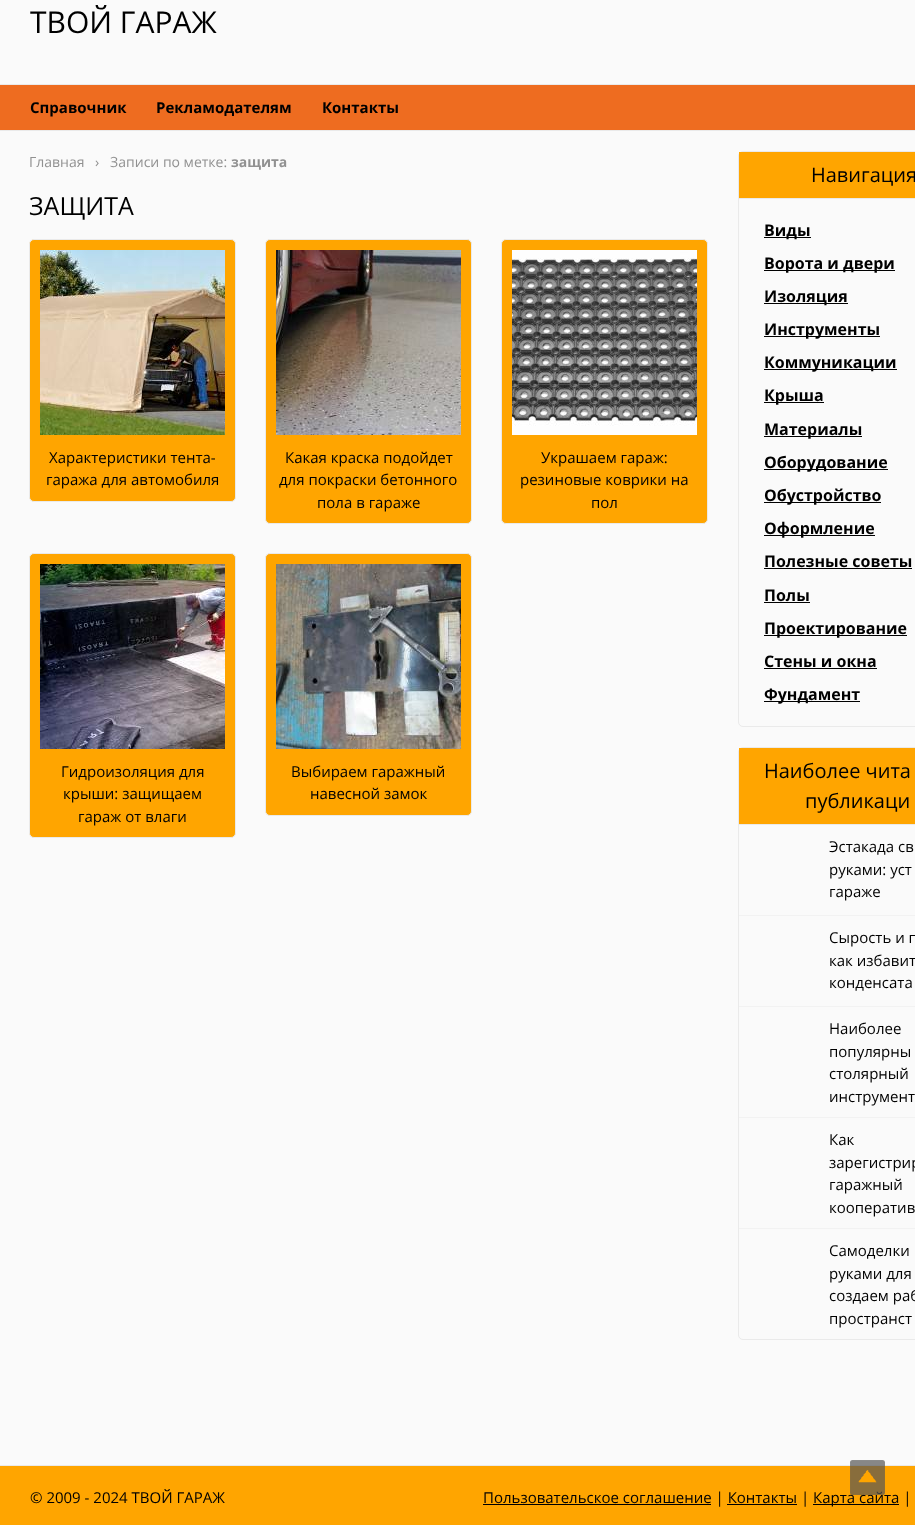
<svg xmlns="http://www.w3.org/2000/svg" width="915" height="1525">
<rect width="100%" height="100%" fill="#fafafa"/>
<text x="30" y="33" style="font-family:Open Sans;font-size:30px;fill:#000">ТВОЙ ГАРАЖ</text>
<rect y="85" width="915" height="45" fill="#ee6c20"/>
<rect y="84" width="915" height="1" fill="#eaeaea"/>
<rect y="130" width="915" height="1" fill="#eaeaea"/>
<text x="30" y="113" style="font-family:Open Sans;font-size:15px;font-weight:bold;fill:#000">Справочник</text>
<text x="156" y="113" style="font-family:Open Sans;font-size:15px;font-weight:bold;fill:#000">Рекламодателям</text>
<text x="322" y="113" style="font-family:Open Sans;font-size:15px;font-weight:bold;fill:#000">Контакты</text>
<text x="29" y="167" style="font-family:Open Sans;font-size:14px;fill:#919191">Главная</text>
<text x="95" y="167" style="font-family:Open Sans;font-size:14px;fill:#919191" xml:space="preserve">›   Записи по метке:</text>
<text x="231" y="167" style="font-family:Open Sans;font-size:14px;font-weight:bold;fill:#919191">защита</text>
<text x="29" y="215" style="font-family:Open Sans;font-size:25px;fill:#000">ЗАЩИТА</text>
<rect x="29.5" y="239.5" width="206" height="262" rx="4.5" fill="#ffa500" stroke="#eaeaea"/>
<image x="40" y="250" width="185" height="185" href="media/1.png"/>
<text x="49" y="463" style="font-family:Open Sans;font-size:15px;fill:#000">Характеристики тента-</text>
<text x="46" y="485" style="font-family:Open Sans;font-size:15px;fill:#000">гаража для автомобиля</text>
<rect x="265.5" y="239.5" width="206" height="284" rx="4.5" fill="#ffa500" stroke="#eaeaea"/>
<image x="276" y="250" width="185" height="185" href="media/2.png"/>
<text x="285" y="463" style="font-family:Open Sans;font-size:15px;fill:#000">Какая краска подойдет</text>
<text x="279" y="485" style="font-family:Open Sans;font-size:15px;fill:#000">для покраски бетонного</text>
<text x="317" y="508" style="font-family:Open Sans;font-size:15px;fill:#000">пола в гараже</text>
<rect x="501.5" y="239.5" width="206" height="284" rx="4.5" fill="#ffa500" stroke="#eaeaea"/>
<image x="512" y="250" width="185" height="185" href="media/3.png"/>
<text x="541" y="463" style="font-family:Open Sans;font-size:15px;fill:#000">Украшаем гараж:</text>
<text x="520" y="485" style="font-family:Open Sans;font-size:15px;fill:#000">резиновые коврики на</text>
<text x="591" y="508" style="font-family:Open Sans;font-size:15px;fill:#000">пол</text>
<rect x="29.5" y="553.5" width="206" height="284" rx="4.5" fill="#ffa500" stroke="#eaeaea"/>
<image x="40" y="564" width="185" height="185" href="media/4.png"/>
<text x="61" y="777" style="font-family:Open Sans;font-size:15px;fill:#000">Гидроизоляция для</text>
<text x="63" y="799" style="font-family:Open Sans;font-size:15px;fill:#000">крыши: защищаем</text>
<text x="78" y="822" style="font-family:Open Sans;font-size:15px;fill:#000">гараж от влаги</text>
<rect x="265.5" y="553.5" width="206" height="262" rx="4.5" fill="#ffa500" stroke="#eaeaea"/>
<image x="276" y="564" width="185" height="185" href="media/5.png"/>
<text x="291" y="777" style="font-family:Open Sans;font-size:15px;fill:#000">Выбираем гаражный</text>
<text x="310" y="799" style="font-family:Open Sans;font-size:15px;fill:#000">навесной замок</text>
<rect x="738.5" y="151.5" width="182" height="575" rx="4.5" fill="none" stroke="#eaeaea"/>
<rect x="739" y="152" width="176" height="46" fill="#ffa500"/>
<rect x="739" y="198" width="176" height="1" fill="#eaeaea"/>
<text x="811" y="182" style="font-family:Open Sans;font-size:20px;fill:#000">Навигация</text>
<rect x="764" y="237" width="47" height="1" fill="#000"/>
<text x="764" y="236" style="font-family:Open Sans;font-size:16px;font-weight:bold;fill:#000">Виды</text>
<rect x="764" y="270" width="131" height="1" fill="#000"/>
<text x="764" y="269" style="font-family:Open Sans;font-size:16px;font-weight:bold;fill:#000">Ворота и двери</text>
<rect x="764" y="303" width="84" height="1" fill="#000"/>
<text x="764" y="302" style="font-family:Open Sans;font-size:16px;font-weight:bold;fill:#000">Изоляция</text>
<rect x="764" y="336" width="116" height="1" fill="#000"/>
<text x="764" y="335" style="font-family:Open Sans;font-size:16px;font-weight:bold;fill:#000">Инструменты</text>
<rect x="764" y="369" width="133" height="1" fill="#000"/>
<text x="764" y="368" style="font-family:Open Sans;font-size:16px;font-weight:bold;fill:#000">Коммуникации</text>
<rect x="764" y="402" width="60" height="1" fill="#000"/>
<text x="764" y="401" style="font-family:Open Sans;font-size:16px;font-weight:bold;fill:#000">Крыша</text>
<rect x="764" y="436" width="98" height="1" fill="#000"/>
<text x="764" y="435" style="font-family:Open Sans;font-size:16px;font-weight:bold;fill:#000">Материалы</text>
<rect x="764" y="469" width="124" height="1" fill="#000"/>
<text x="764" y="468" style="font-family:Open Sans;font-size:16px;font-weight:bold;fill:#000">Оборудование</text>
<rect x="764" y="502" width="117" height="1" fill="#000"/>
<text x="764" y="501" style="font-family:Open Sans;font-size:16px;font-weight:bold;fill:#000">Обустройство</text>
<rect x="764" y="535" width="111" height="1" fill="#000"/>
<text x="764" y="534" style="font-family:Open Sans;font-size:16px;font-weight:bold;fill:#000">Оформление</text>
<text x="764" y="567" style="font-family:Open Sans;font-size:16px;font-weight:bold;fill:#000">Полезные советы</text>
<rect x="764" y="568" width="148" height="1" fill="#000"/>
<text x="764" y="601" style="font-family:Open Sans;font-size:16px;font-weight:bold;fill:#000">Полы</text>
<rect x="764" y="602" width="46" height="1" fill="#000"/>
<rect x="764" y="635" width="143" height="1" fill="#000"/>
<text x="764" y="634" style="font-family:Open Sans;font-size:16px;font-weight:bold;fill:#000">Проектирование</text>
<text x="764" y="667" style="font-family:Open Sans;font-size:16px;font-weight:bold;fill:#000">Стены и окна</text>
<rect x="764" y="668" width="113" height="1" fill="#000"/>
<rect x="764" y="701" width="96" height="1" fill="#000"/>
<text x="764" y="700" style="font-family:Open Sans;font-size:16px;font-weight:bold;fill:#000">Фундамент</text>
<rect x="738.5" y="747.5" width="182" height="592" rx="4.5" fill="none" stroke="#eaeaea"/>
<rect x="739" y="748" width="176" height="76" fill="#ffa500"/>
<rect x="739" y="824" width="176" height="1" fill="#eaeaea"/>
<text x="764" y="778" style="font-family:Open Sans;font-size:20px;fill:#000">Наиболее чита</text>
<text x="805" y="808" style="font-family:Open Sans;font-size:20px;fill:#000">публикаци</text>
<text x="829" y="852" style="font-family:Open Sans;font-size:15px;fill:#000">Эстакада св</text>
<text x="829" y="875" style="font-family:Open Sans;font-size:15px;fill:#000">руками: уст</text>
<text x="829" y="897" style="font-family:Open Sans;font-size:15px;fill:#000">гараже</text>
<rect x="739" y="915" width="176" height="1" fill="#f2f2f2"/>
<text x="829" y="943" style="font-family:Open Sans;font-size:15px;fill:#000">Сырость и п</text>
<text x="829" y="966" style="font-family:Open Sans;font-size:15px;fill:#000">как избавит</text>
<text x="829" y="988" style="font-family:Open Sans;font-size:15px;fill:#000">конденсата</text>
<rect x="739" y="1006" width="176" height="1" fill="#f2f2f2"/>
<text x="829" y="1034" style="font-family:Open Sans;font-size:15px;fill:#000">Наиболее</text>
<text x="829" y="1057" style="font-family:Open Sans;font-size:15px;fill:#000">популярны</text>
<text x="829" y="1079" style="font-family:Open Sans;font-size:15px;fill:#000">столярный</text>
<text x="829" y="1102" style="font-family:Open Sans;font-size:15px;fill:#000">инструмент</text>
<rect x="739" y="1117" width="176" height="1" fill="#f2f2f2"/>
<text x="829" y="1145" style="font-family:Open Sans;font-size:15px;fill:#000">Как</text>
<text x="829" y="1168" style="font-family:Open Sans;font-size:15px;fill:#000">зарегистрир</text>
<text x="829" y="1190" style="font-family:Open Sans;font-size:15px;fill:#000">гаражный</text>
<text x="829" y="1213" style="font-family:Open Sans;font-size:15px;fill:#000">кооператив</text>
<rect x="739" y="1228" width="176" height="1" fill="#f2f2f2"/>
<text x="829" y="1256" style="font-family:Open Sans;font-size:15px;fill:#000">Самоделки</text>
<text x="829" y="1279" style="font-family:Open Sans;font-size:15px;fill:#000">руками для</text>
<text x="829" y="1301" style="font-family:Open Sans;font-size:15px;fill:#000">создаем раб</text>
<text x="829" y="1324" style="font-family:Open Sans;font-size:15px;fill:#000">пространст</text>
<rect y="1466" width="915" height="59" fill="#ffa500"/>
<rect y="1465" width="915" height="1" fill="#eaeaea"/>
<text x="30" y="1503" style="font-family:Open Sans;font-size:15px;fill:#000">© 2009 - 2024 ТВОЙ ГАРАЖ</text>
<rect x="483" y="1504" width="228" height="1" fill="#000"/>
<text x="483" y="1503" style="font-family:Open Sans;font-size:15px;fill:#000">Пользовательское соглашение | Контакты |</text>
<rect x="813" y="1504" width="86" height="1" fill="#000"/>
<text x="813" y="1503" style="font-family:Open Sans;font-size:15px;fill:#000">Карта сайта |</text>
<rect x="727" y="1504" width="70" height="1" fill="#000"/>
<image x="850" y="1460" width="35" height="35" href="media/6.png"/>
</svg>
